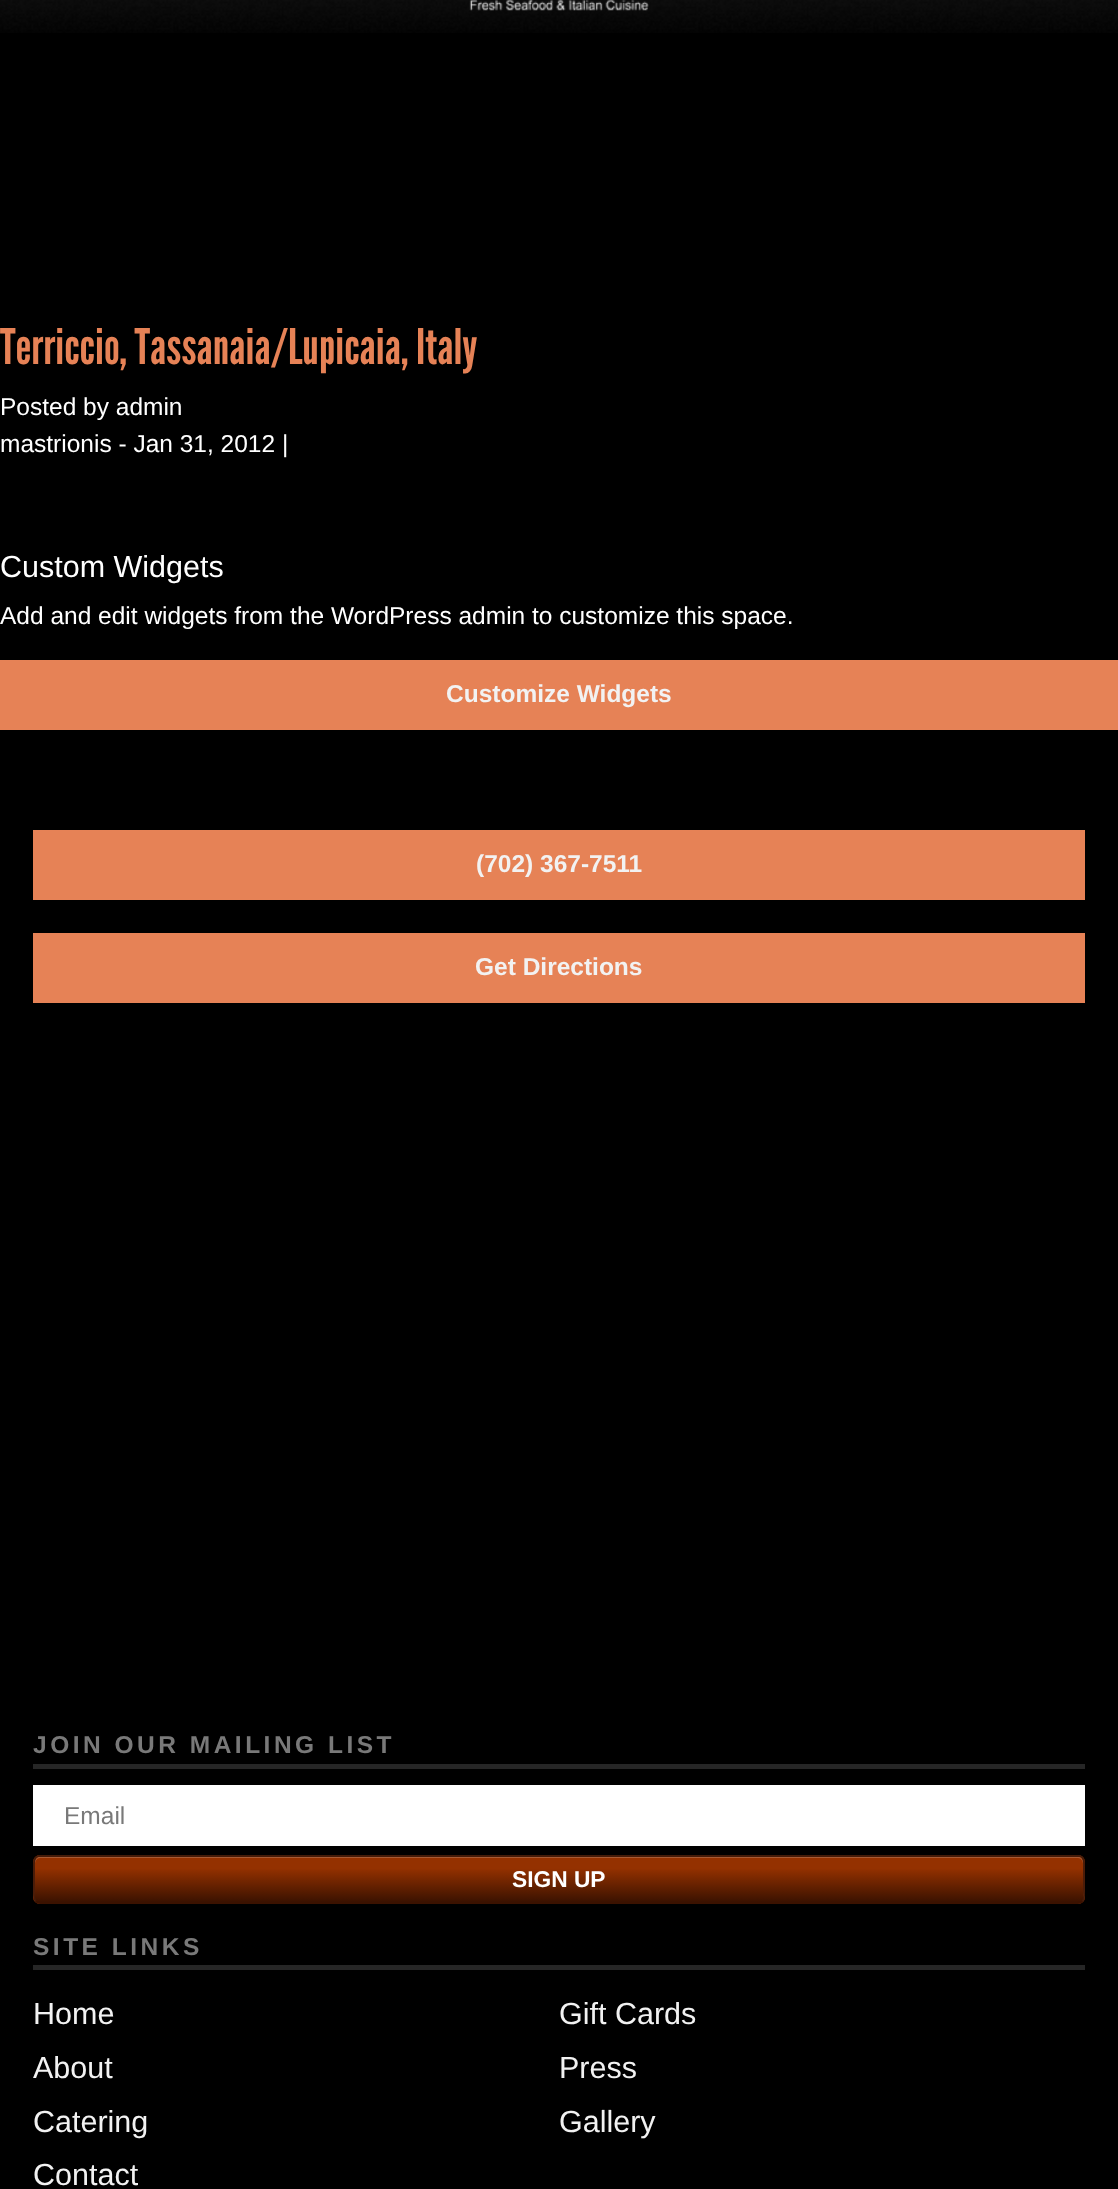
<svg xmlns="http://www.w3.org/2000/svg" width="1118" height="2189">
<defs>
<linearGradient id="g1" gradientUnits="userSpaceOnUse" x1="559" y1="1857" x2="559" y2="1902"><stop offset="0" stop-color="#943100"/><stop offset="0.25" stop-color="#943100"/><stop offset="1" stop-color="#3b1200"/></linearGradient>
</defs>
<rect width="100%" height="100%" fill="#000"/>
<image x="0" y="0" width="1118" height="33" href="media/1.png"/>
<image x="469" y="0" width="180" height="11" href="media/2.png"/>
<text x="0" y="364" style="font-family:League Gothic;font-size:49px;fill:#e68256">Terriccio, Tassanaia/Lupicaia, Italy</text>
<text x="0" y="415" style="font-family:Liberation Sans;font-size:24.5px;fill:#fff">Posted by admin</text>
<text x="0" y="452" style="font-family:Liberation Sans;font-size:24.5px;fill:#fff">mastrionis - Jan 31, 2012 |</text>
<text x="0" y="577" style="font-family:Liberation Sans;font-size:30.5px;fill:#fff">Custom Widgets</text>
<text x="0" y="624" style="font-family:Liberation Sans;font-size:24.5px;fill:#fff">Add and edit widgets from the WordPress admin to customize this space.</text>
<rect y="660" width="1118" height="70" fill="#e68256"/>
<text x="446" y="702" style="font-family:Liberation Sans;font-size:24.5px;font-weight:bold;fill:#f2f2f2">Customize Widgets</text>
<rect x="33" y="830" width="1052" height="70" fill="#e68256"/>
<text x="476" y="872" style="font-family:Liberation Sans;font-size:24.5px;font-weight:bold;fill:#f2f2f2">(702) 367-7511</text>
<rect x="33" y="933" width="1052" height="70" fill="#e68256"/>
<text x="475" y="975" style="font-family:Liberation Sans;font-size:24.5px;font-weight:bold;fill:#f2f2f2">Get Directions</text>
<rect x="33" y="1764" width="1052" height="5" fill="#262626"/>
<text x="33" y="1753" style="font-family:Liberation Sans;font-size:24.5px;font-weight:bold;letter-spacing:3.5px;fill:#797979">JOIN OUR MAILING LIST</text>
<rect x="33" y="1785" width="1052" height="61" fill="#fff"/>
<text x="64" y="1824" style="font-family:Liberation Sans;font-size:24.5px;fill:#797979">Email</text>
<rect x="33" y="1855" width="1052" height="49" rx="7" fill="#943100"/>
<rect x="35" y="1869" width="1048" height="33" fill="url(#g1)"/>
<path d="M40 1858h1038c3 0 5 3 5 6v-2c0-3-2-5-5-5h-1038c-3 0-5 2-5 5v2c0-3 2-6 5-6z" fill="#a95a33"/>
<path d="M1082.5 1901.5c-1.5 1-3 1.5-4.5 1.5h-1038c-1.5 0-3-.5-4-1.5" fill="none" stroke="#3b1200" stroke-width="1.8"/>
<path d="M36 1901.5c-2.5-3-2-7-2-10.5v-23c0-4.5-1-10.5 4.5-12h1041.5c5 1.5 4 7.5 4 12v23c0 3.5 1 7.5-1.5 10.5" fill="none" stroke="#441b09" stroke-width="1.8"/>
<text x="512" y="1887" style="font-family:Liberation Sans;font-size:22.75px;font-weight:bold;fill:#fff">SIGN UP</text>
<rect x="33" y="1965" width="1052" height="5" fill="#262626"/>
<text x="33" y="1955" style="font-family:Liberation Sans;font-size:24.5px;font-weight:bold;letter-spacing:3.5px;fill:#797979">SITE LINKS</text>
<text x="33" y="2024" style="font-family:Liberation Sans;font-size:30.5px;fill:#f2f2f2">Home</text>
<text x="559" y="2024" style="font-family:Liberation Sans;font-size:30.5px;fill:#f2f2f2">Gift Cards</text>
<text x="33" y="2078" style="font-family:Liberation Sans;font-size:30.5px;fill:#f2f2f2">About</text>
<text x="559" y="2078" style="font-family:Liberation Sans;font-size:30.5px;fill:#f2f2f2">Press</text>
<text x="33" y="2132" style="font-family:Liberation Sans;font-size:30.5px;fill:#f2f2f2">Catering</text>
<text x="559" y="2132" style="font-family:Liberation Sans;font-size:30.5px;fill:#f2f2f2">Gallery</text>
<text x="33" y="2185" style="font-family:Liberation Sans;font-size:30.5px;fill:#f2f2f2">Contact</text>
</svg>
